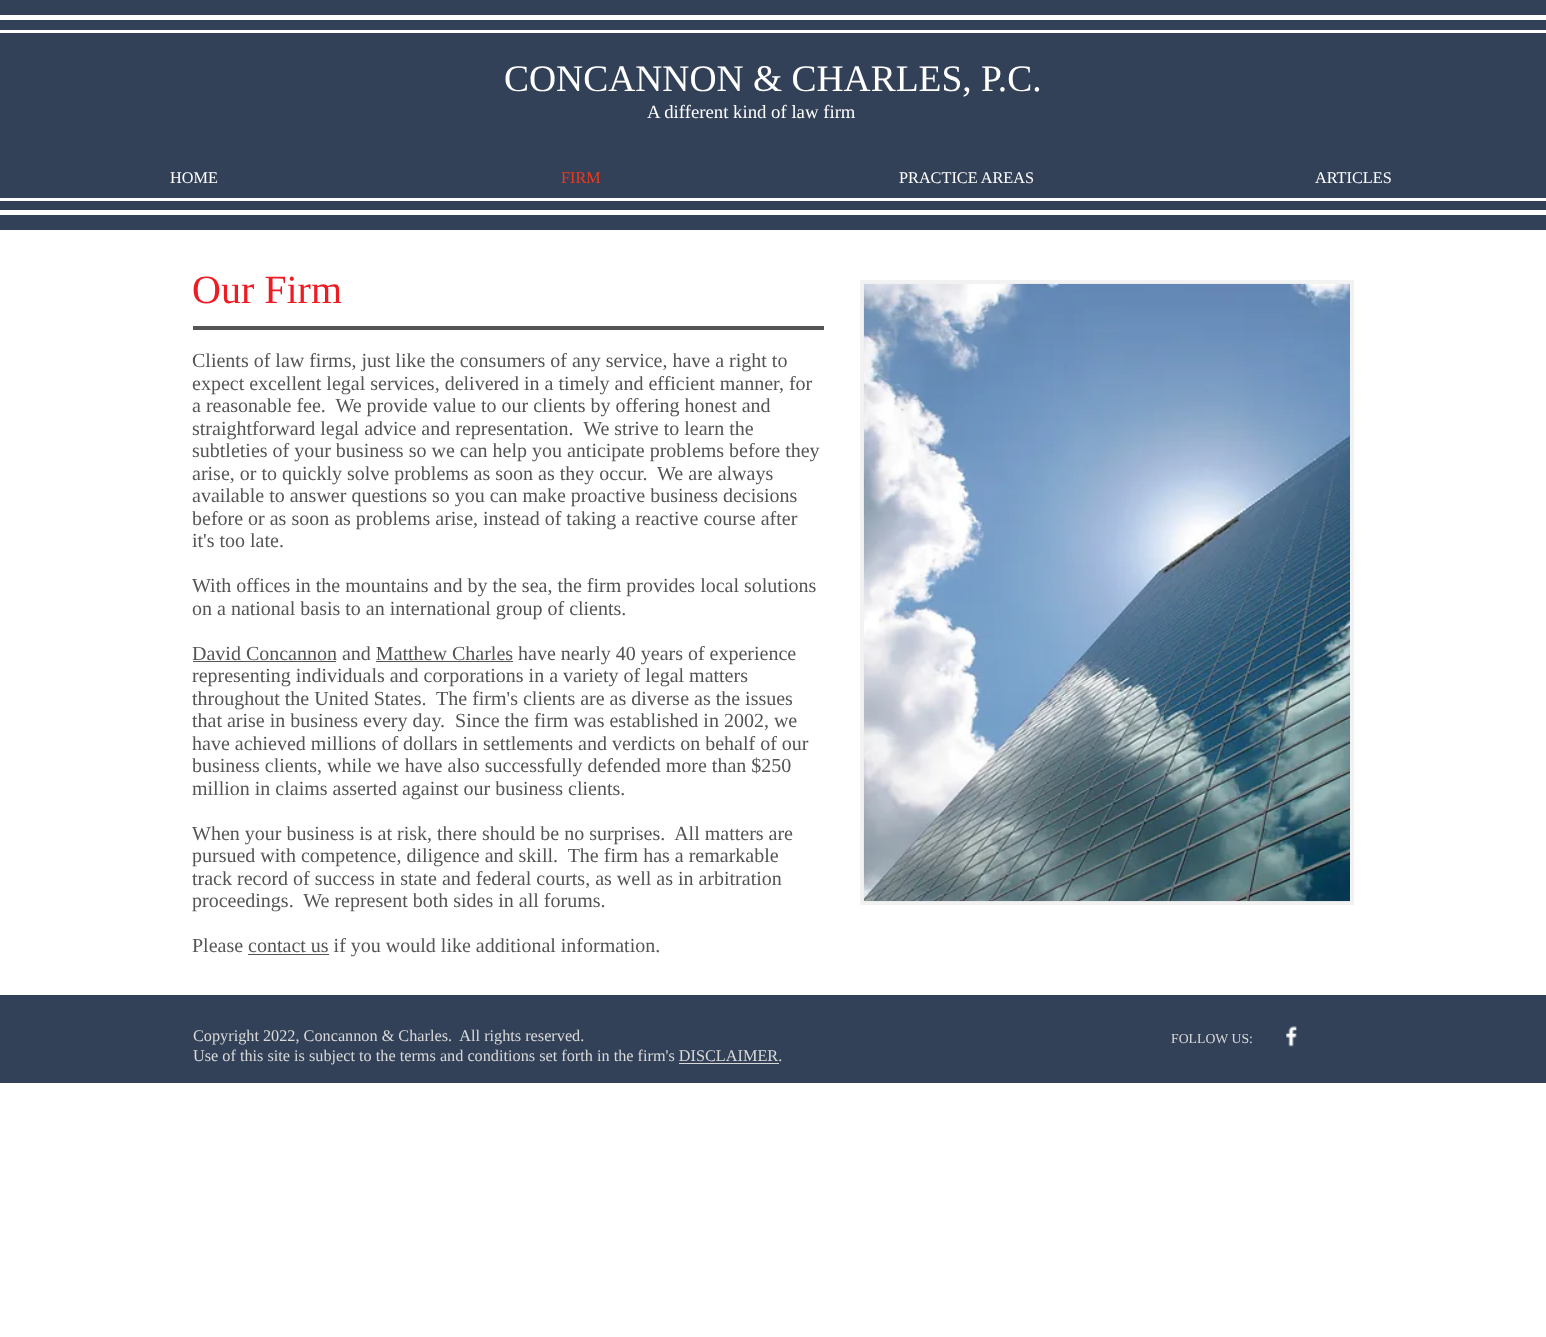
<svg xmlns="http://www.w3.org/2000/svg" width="1546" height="1337">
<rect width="100%" height="100%" fill="#fff"/>
<rect width="1546" height="230" fill="#324158"/>
<rect y="15" width="1546" height="5" fill="#fff"/>
<rect y="210" width="1546" height="5" fill="#fff"/>
<rect y="30" width="1546" height="3" fill="#fff"/>
<rect y="198" width="1546" height="3" fill="#fff"/>
<text x="504" y="91" style="font-family:Liberation Serif;font-size:37.5px;fill:#fff">CONCANNON &amp; CHARLES, P.C.</text>
<text x="647" y="118" style="font-family:Liberation Serif;font-size:18.75px;fill:#fff">A different kind of law firm</text>
<text x="170" y="183" style="font-family:Liberation Serif;font-size:16.25px;fill:#fff">HOME</text>
<text x="561" y="183" style="font-family:Liberation Serif;font-size:16.25px;fill:#ed3a1e">FIRM</text>
<text x="899" y="183" style="font-family:Liberation Serif;font-size:16.25px;fill:#fff">PRACTICE AREAS</text>
<text x="1315" y="183" style="font-family:Liberation Serif;font-size:16.25px;fill:#fff">ARTICLES</text>
<text x="192" y="303" style="font-family:Liberation Serif;font-size:40px;fill:#ed1c24">Our Firm</text>
<rect x="862" y="282" width="490" height="621" fill="none" stroke="#f2f2f2" stroke-width="4"/>
<image x="863" y="283" width="487" height="619" href="media/1.png"/>
<rect x="193" y="326" width="631" height="4" fill="#555"/>
<text x="192" y="367" style="font-family:Liberation Serif;font-size:20px;fill:#555">Clients of law firms, just like the consumers of any service, have a right to</text>
<text x="192" y="390" style="font-family:Liberation Serif;font-size:20px;fill:#555">expect excellent legal services, delivered in a timely and efficient manner, for</text>
<text x="192" y="412" style="font-family:Liberation Serif;font-size:20px;fill:#555" xml:space="preserve">a reasonable fee.  We provide value to our clients by offering honest and</text>
<text x="192" y="435" style="font-family:Liberation Serif;font-size:20px;fill:#555" xml:space="preserve">straightforward legal advice and representation.  We strive to learn the</text>
<text x="192" y="457" style="font-family:Liberation Serif;font-size:20px;fill:#555">subtleties of your business so we can help you anticipate problems before they</text>
<text x="192" y="480" style="font-family:Liberation Serif;font-size:20px;fill:#555" xml:space="preserve">arise, or to quickly solve problems as soon as they occur.  We are always</text>
<text x="192" y="502" style="font-family:Liberation Serif;font-size:20px;fill:#555">available to answer questions so you can make proactive business decisions</text>
<text x="192" y="525" style="font-family:Liberation Serif;font-size:20px;fill:#555">before or as soon as problems arise, instead of taking a reactive course after</text>
<text x="192" y="547" style="font-family:Liberation Serif;font-size:20px;fill:#555">it's too late.</text>
<text x="192" y="592" style="font-family:Liberation Serif;font-size:20px;fill:#555">With offices in the mountains and by the sea, the firm provides local solutions</text>
<text x="192" y="615" style="font-family:Liberation Serif;font-size:20px;fill:#555">on a national basis to an international group of clients.</text>
<rect x="193" y="661" width="143" height="1" fill="#555"/>
<text x="192" y="660" style="font-family:Liberation Serif;font-size:20px;fill:#555">David Concannon and Matthew Charles have nearly 40 years of experience</text>
<rect x="376" y="661" width="137" height="1" fill="#555"/>
<text x="192" y="682" style="font-family:Liberation Serif;font-size:20px;fill:#555">representing individuals and corporations in a variety of legal matters</text>
<text x="192" y="705" style="font-family:Liberation Serif;font-size:20px;fill:#555" xml:space="preserve">throughout the United States.  The firm's clients are as diverse as the issues</text>
<text x="192" y="727" style="font-family:Liberation Serif;font-size:20px;fill:#555" xml:space="preserve">that arise in business every day.  Since the firm was established in 2002, we</text>
<text x="192" y="750" style="font-family:Liberation Serif;font-size:20px;fill:#555">have achieved millions of dollars in settlements and verdicts on behalf of our</text>
<text x="192" y="772" style="font-family:Liberation Serif;font-size:20px;fill:#555">business clients, while we have also successfully defended more than $250</text>
<text x="192" y="795" style="font-family:Liberation Serif;font-size:20px;fill:#555">million in claims asserted against our business clients.</text>
<text x="192" y="840" style="font-family:Liberation Serif;font-size:20px;fill:#555" xml:space="preserve">When your business is at risk, there should be no surprises.  All matters are</text>
<text x="192" y="862" style="font-family:Liberation Serif;font-size:20px;fill:#555" xml:space="preserve">pursued with competence, diligence and skill.  The firm has a remarkable</text>
<text x="192" y="885" style="font-family:Liberation Serif;font-size:20px;fill:#555">track record of success in state and federal courts, as well as in arbitration</text>
<text x="192" y="907" style="font-family:Liberation Serif;font-size:20px;fill:#555" xml:space="preserve">proceedings.  We represent both sides in all forums.</text>
<text x="192" y="952" style="font-family:Liberation Serif;font-size:20px;fill:#555">Please contact us if you would like additional information.</text>
<rect x="248" y="954" width="81" height="1" fill="#555"/>
<rect y="995" width="1546" height="88" fill="#324158"/>
<text x="193" y="1041" style="font-family:Liberation Serif;font-size:16.25px;fill:#d9d9d9" xml:space="preserve">Copyright 2022, Concannon &amp; Charles.  All rights reserved.</text>
<text x="193" y="1061" style="font-family:Liberation Serif;font-size:16.25px;fill:#d9d9d9">Use of this site is subject to the terms and conditions set forth in the firm's DISCLAIMER.</text>
<rect x="679" y="1063" width="100" height="1" fill="#d9d9d9"/>
<text x="1171" y="1043" style="font-family:Liberation Serif;font-size:13.75px;fill:#d9d9d9">FOLLOW US:</text>
<image x="1286" y="1026" width="11" height="21" href="media/2.png"/>
</svg>
